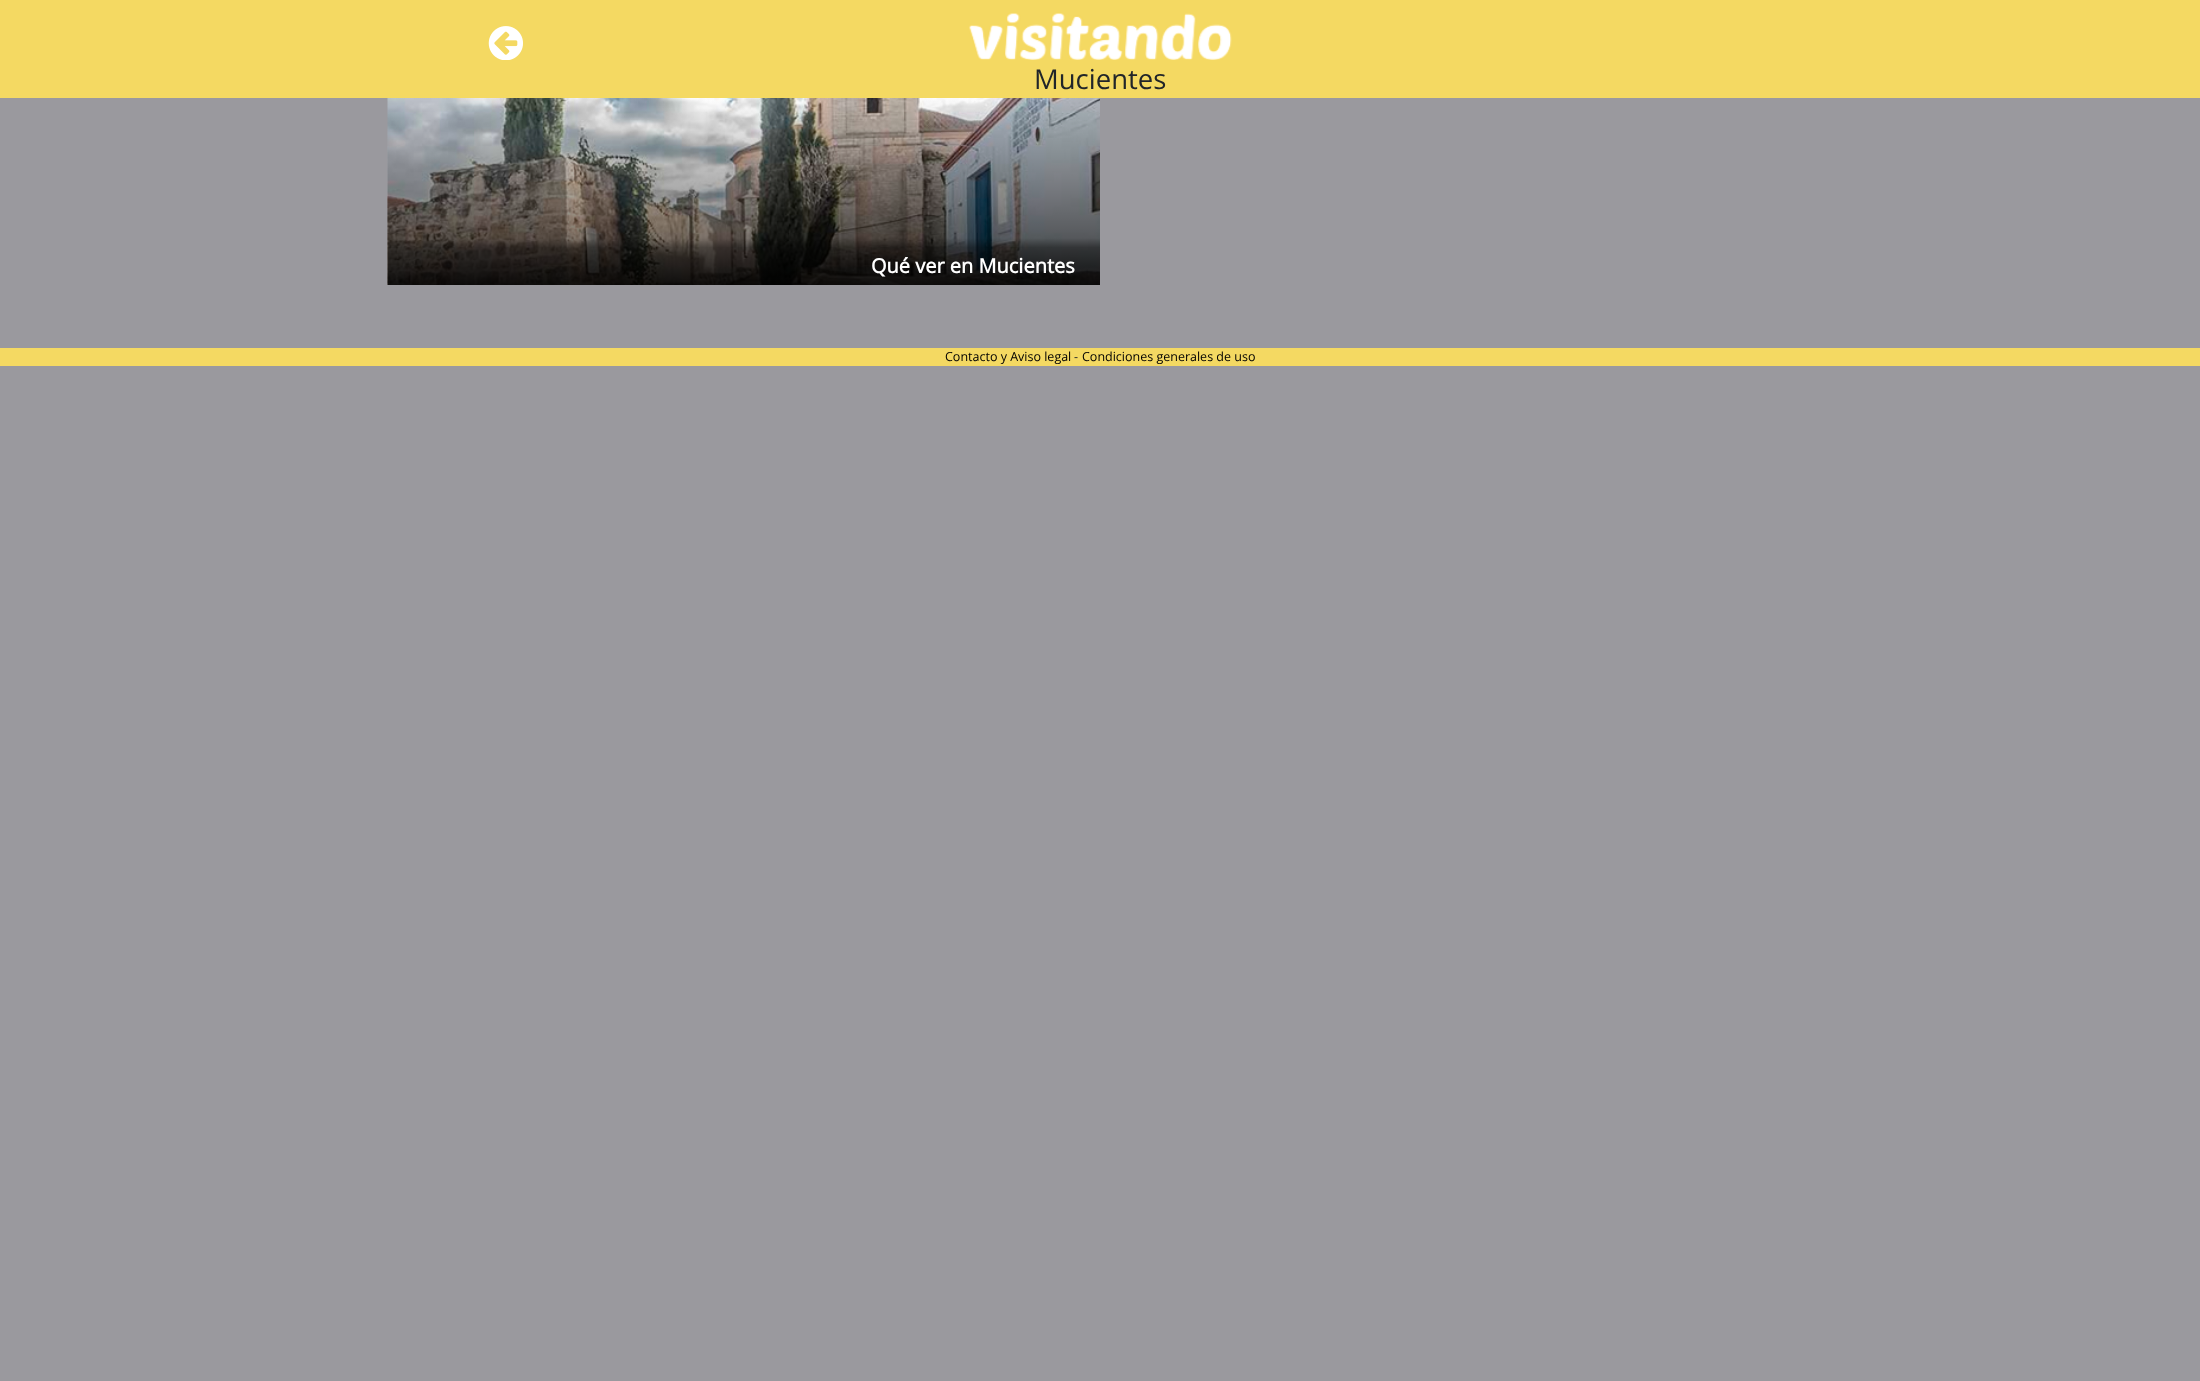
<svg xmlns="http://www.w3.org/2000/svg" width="2200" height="1381">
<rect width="100%" height="100%" fill="#9a999e"/>
<rect width="2200" height="98" fill="#f4d962"/>
<image x="488" y="26" width="35" height="34" href="media/1.png"/>
<image x="969" y="13" width="263" height="47" href="media/2.png"/>
<text x="1034" y="89" style="font-family:Open Sans;font-size:27.5px;fill:#212529">Mucientes</text>
<image x="387" y="98" width="713" height="187" href="media/3.png"/>
<text x="871" y="273" style="font-family:Open Sans;font-size:20px;font-weight:bold;fill:#fff">Qué ver en Mucientes</text>
<rect y="348" width="2200" height="18" fill="#f4d962"/>
<text x="945" y="361" style="font-family:Open Sans;font-size:12.5px;fill:#000">Contacto y Aviso legal</text>
<text x="1074" y="361" style="font-family:Open Sans;font-size:12.5px;fill:#212529">-</text>
<text x="1082" y="361" style="font-family:Open Sans;font-size:12.5px;fill:#000">Condiciones generales de uso</text>
</svg>
